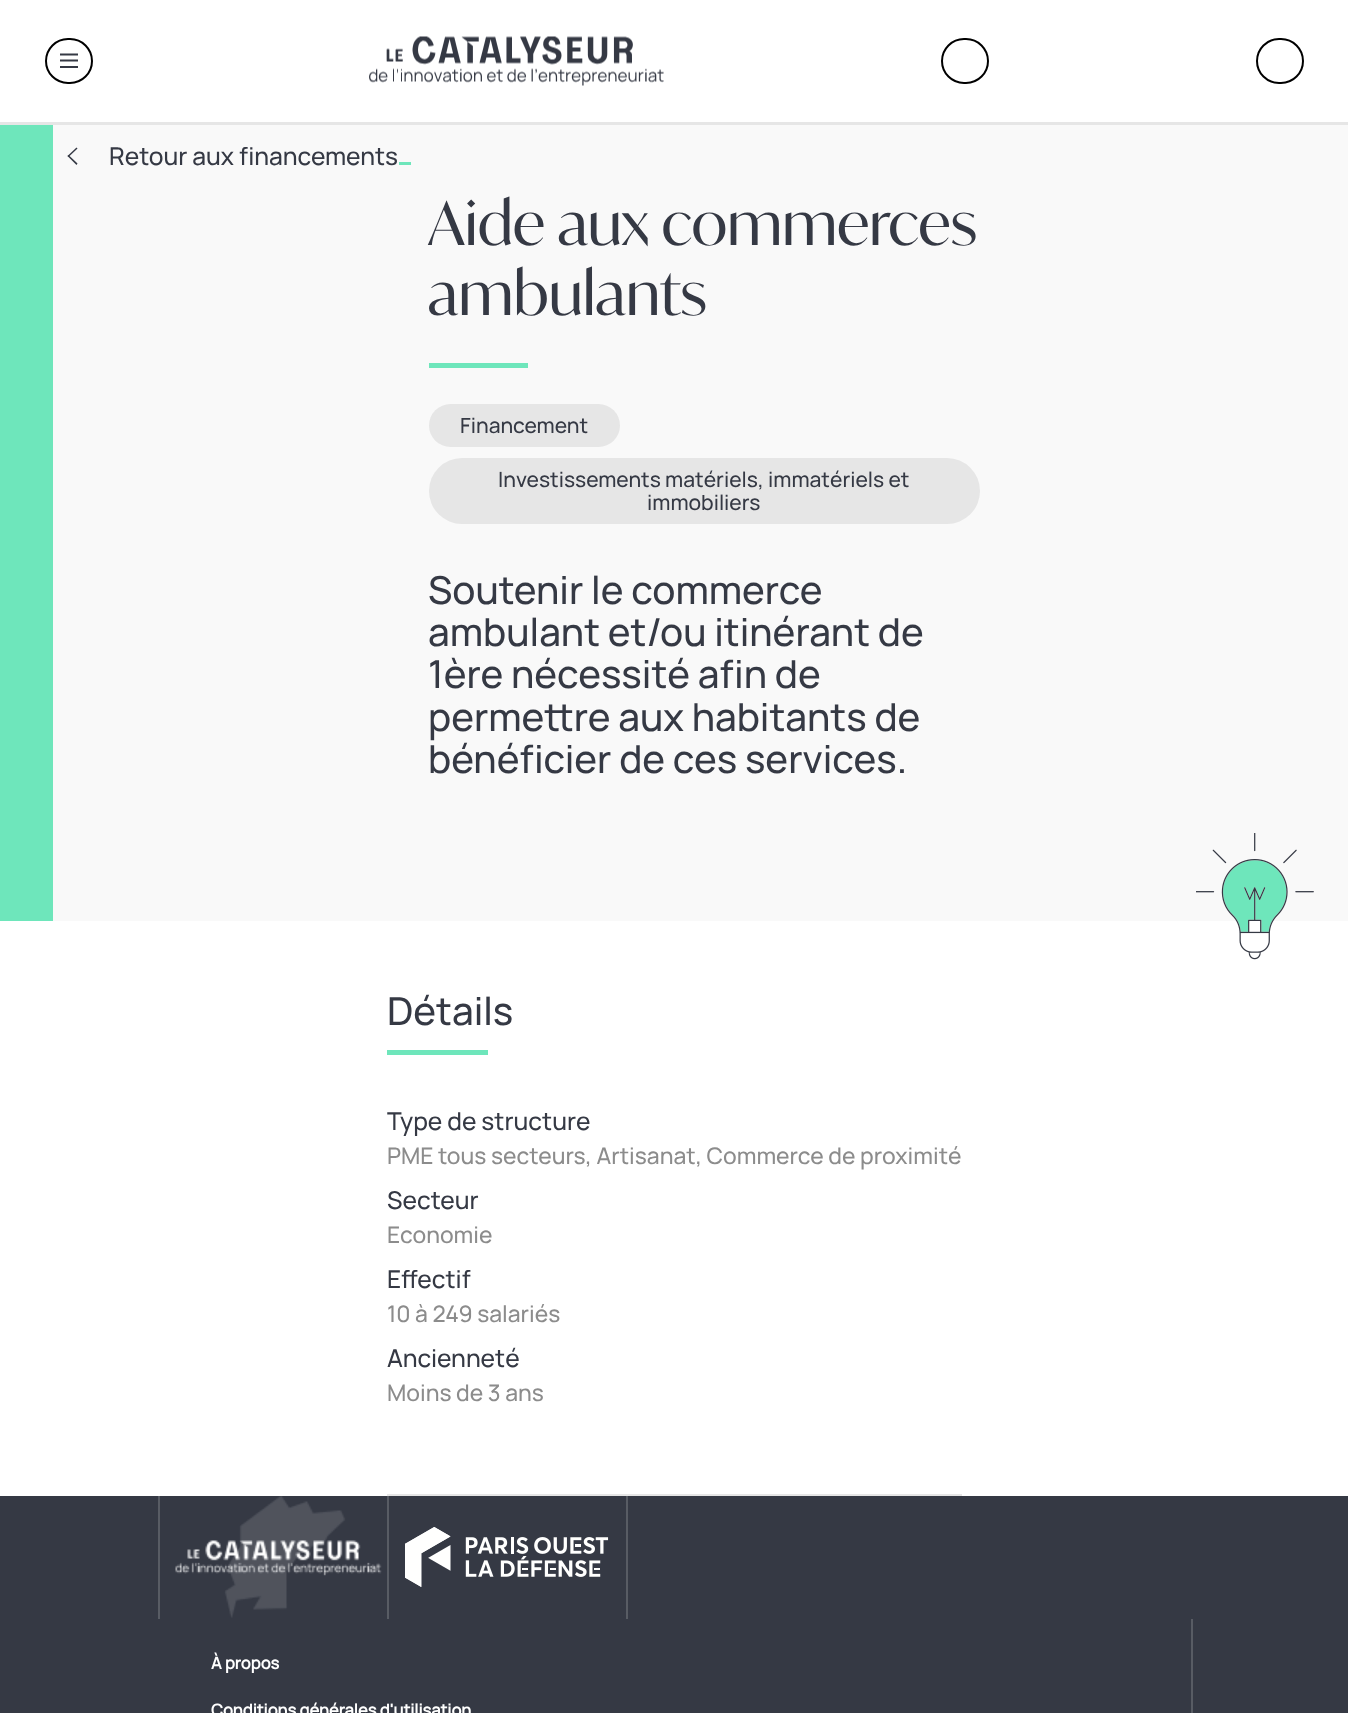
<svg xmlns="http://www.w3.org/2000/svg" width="1348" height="1713">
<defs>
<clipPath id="clip1"><rect x="60" y="51" width="18" height="20"/></clipPath>
</defs>
<rect width="100%" height="100%" fill="#fff"/>
<rect x="46" y="39" width="46" height="44" rx="22" fill="none" stroke="#000" stroke-width="2"/>
<g clip-path="url(#clip1)">
<path d="M61 54.5h17.5m-17.5 6h17.5m-17.5 6.5h17.5" fill="none" stroke="#353944" stroke-width="2.1" stroke-linecap="square"/>
</g>
<image x="369" y="36" width="295" height="50" href="media/1.png"/>
<rect x="942" y="39" width="46" height="44" rx="22" fill="none" stroke="#000" stroke-width="2"/>
<rect x="1257" y="39" width="46" height="44" rx="22" fill="none" stroke="#000" stroke-width="2"/>
<rect y="122" width="1348" height="3" fill="#e6e6e6"/>
<rect x="53" y="125" width="1295" height="796" fill="#f9f9f9"/>
<rect y="125" width="53" height="796" fill="#6ee6bb"/>
<path d="M76.5 165l-9-9l1-1l9 8.5z" fill="#353944"/>
<path d="M68.5 157l-1-1l9-8.5l1 1z" fill="#353944"/>
<text x="109" y="165" style="font-family:Manrope;font-size:24.5px;font-weight:200;fill:#353944">Retour aux financements</text>
<rect x="399" y="162" width="12" height="3" fill="#6ee6bb"/>
<text x="428" y="245" style="font-family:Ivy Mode;font-size:59.75px;fill:#353944">Aide aux commerces</text>
<text x="428" y="315" style="font-family:Ivy Mode;font-size:59.75px;fill:#353944">ambulants</text>
<rect x="429" y="363" width="99" height="5" fill="#6ee6bb"/>
<rect x="429" y="404" width="191" height="43" rx="21.5" fill="#e6e6e6"/>
<text x="460" y="433" style="font-family:Manrope;font-size:21px;font-weight:200;fill:#353944">Financement</text>
<rect x="429" y="458" width="551" height="66" rx="33" fill="#e6e6e6"/>
<text x="498" y="487" style="font-family:Manrope;font-size:21px;font-weight:200;fill:#353944">Investissements matériels, immatériels et</text>
<text x="647" y="510" style="font-family:Manrope;font-size:21px;font-weight:200;fill:#353944">immobiliers</text>
<text x="428" y="604" style="font-family:Manrope;font-size:38.6px;font-weight:200;fill:#353944">Soutenir le commerce</text>
<text x="428" y="646" style="font-family:Manrope;font-size:38.6px;font-weight:200;fill:#353944">ambulant et/ou itinérant de</text>
<text x="428" y="688" style="font-family:Manrope;font-size:38.6px;font-weight:200;fill:#353944">1ère nécessité afin de</text>
<text x="428" y="731" style="font-family:Manrope;font-size:38.6px;font-weight:200;fill:#353944">permettre aux habitants de</text>
<text x="428" y="773" style="font-family:Manrope;font-size:38.6px;font-weight:200;fill:#353944">bénéficier de ces services.</text>
<image x="1196" y="833" width="118" height="127" href="media/2.png"/>
<text x="387" y="1025" style="font-family:Manrope;font-size:38.6px;font-weight:200;fill:#353944">Détails</text>
<rect x="387" y="1050" width="101" height="5" fill="#6ee6bb"/>
<rect x="387" y="1494" width="575" height="2" fill="#e6e6e6"/>
<text x="387" y="1130" style="font-family:Manrope;font-size:24.5px;font-weight:200;fill:#353944">Type de structure</text>
<text x="387" y="1164" style="font-family:Manrope;font-size:22.8px;font-weight:200;fill:#8c8c8c">PME tous secteurs, Artisanat, Commerce de proximité</text>
<text x="387" y="1209" style="font-family:Manrope;font-size:24.5px;font-weight:200;fill:#353944">Secteur</text>
<text x="387" y="1243" style="font-family:Manrope;font-size:22.8px;font-weight:200;fill:#8c8c8c">Economie</text>
<text x="387" y="1288" style="font-family:Manrope;font-size:24.5px;font-weight:200;fill:#353944">Effectif</text>
<text x="387" y="1322" style="font-family:Manrope;font-size:22.8px;font-weight:200;fill:#8c8c8c">10 à 249 salariés</text>
<text x="387" y="1367" style="font-family:Manrope;font-size:24.5px;font-weight:200;fill:#353944">Ancienneté</text>
<text x="387" y="1401" style="font-family:Manrope;font-size:22.8px;font-weight:200;fill:#8c8c8c">Moins de 3 ans</text>
<rect y="1496" width="1348" height="217" fill="#353944"/>
<rect x="158" y="1496" width="2" height="123" fill="#585c64"/>
<image x="175" y="1496" width="207" height="122" href="media/3.png"/>
<rect x="387" y="1496" width="2" height="123" fill="#585c64"/>
<image x="405" y="1527" width="204" height="60" href="media/4.png"/>
<rect x="626" y="1496" width="2" height="123" fill="#585c64"/>
<text x="211" y="1669" style="font-family:Manrope;font-size:16.5px;font-weight:bold;fill:#fff">À propos</text>
<text x="211" y="1716" style="font-family:Manrope;font-size:16.5px;font-weight:bold;fill:#fff">Conditions générales d'utilisation</text>
<rect x="1191" y="1619" width="2" height="94" fill="#585c64"/>
</svg>
